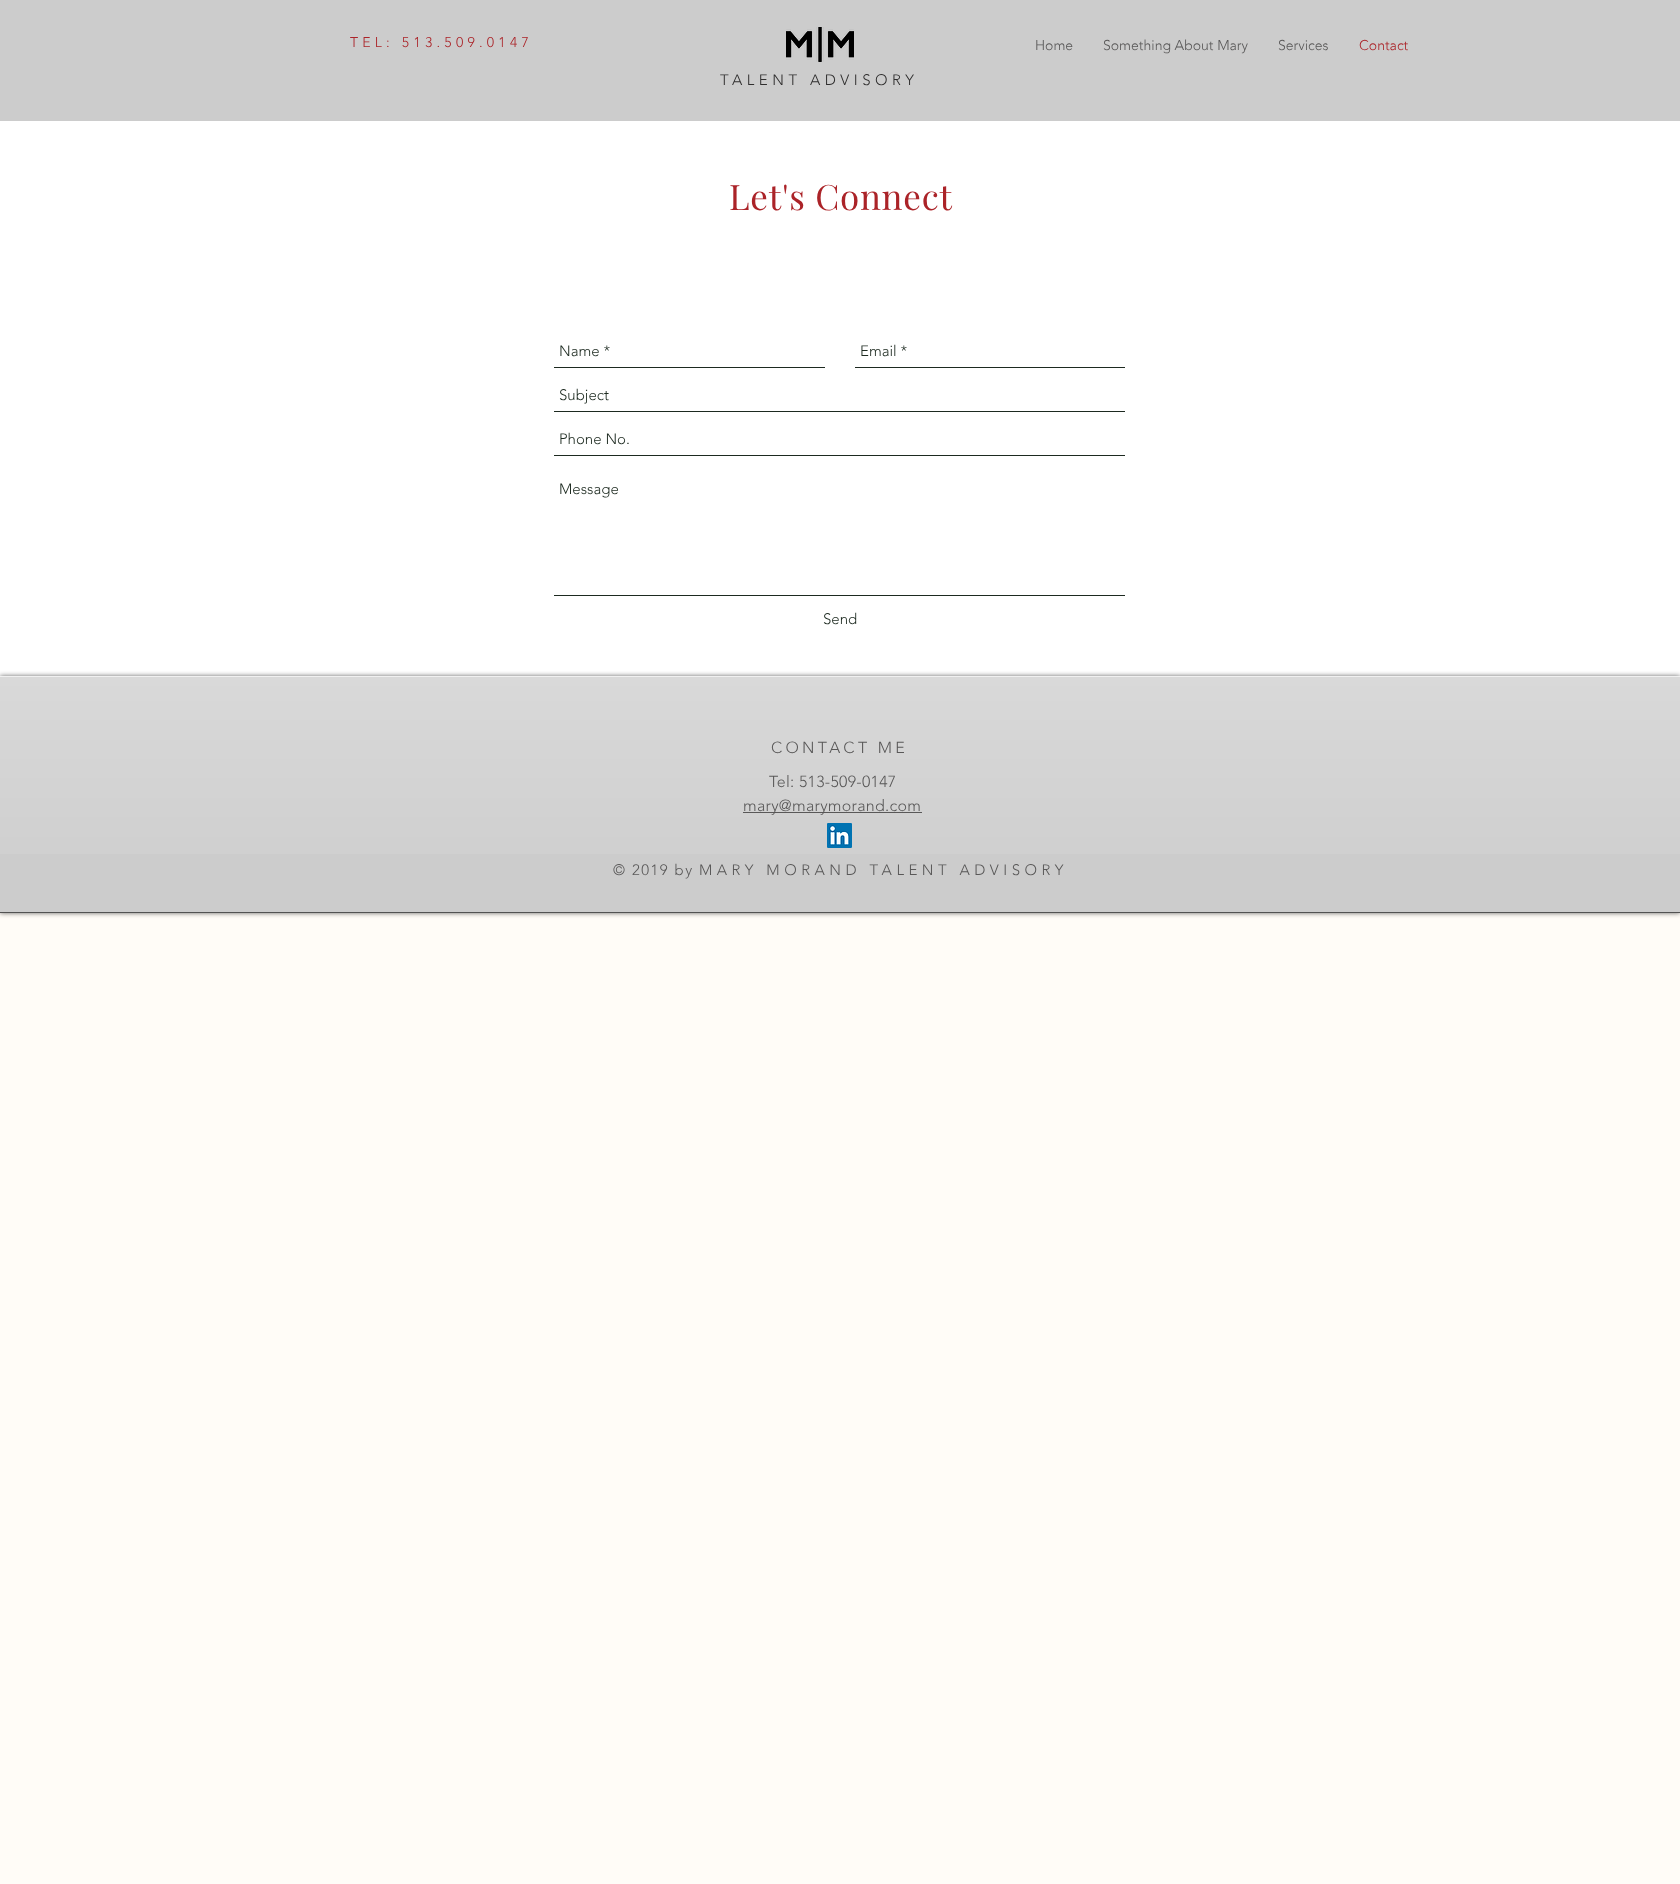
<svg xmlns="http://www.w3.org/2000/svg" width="1680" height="1884">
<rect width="100%" height="100%" fill="#fffcf7"/>
<rect width="1680" height="121" fill="#ccc"/>
<text x="350" y="47" style="font-family:'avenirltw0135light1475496';font-size:14px;font-weight:300;letter-spacing:4.25px;fill:#ab2328">TEL: 513.509.0147</text>
<image x="786" y="27" width="68" height="35" href="media/1.png"/>
<text x="1035" y="50" style="font-family:'avenirltw0135light1475496';font-size:14px;font-weight:300;fill:#595858">Home</text>
<text x="1103" y="50" style="font-family:'avenirltw0135light1475496';font-size:14px;font-weight:300;fill:#595858">Something About Mary</text>
<text x="1278" y="50" style="font-family:'avenirltw0135light1475496';font-size:14px;font-weight:300;fill:#595858">Services</text>
<text x="1359" y="50" style="font-family:'avenirltw0135light1475496';font-size:14px;font-weight:300;fill:#ab2328">Contact</text>
<text x="720" y="85" style="font-family:'avenirltw0135light1475496';font-size:15px;font-weight:300;letter-spacing:4.5px;fill:#2f2e2e">TALENT ADVISORY</text>
<rect y="121" width="1680" height="555" fill="#fff"/>
<text x="729" y="210" style="font-family:Playfair Display;font-size:35px;letter-spacing:0.75px;fill:#ab2328">Let's Connect</text>
<rect x="554" y="367" width="271" height="1" fill="#1d2a20"/>
<text x="559" y="356" style="font-family:'avenirltw0135light1475496';font-size:15px;font-weight:300;fill:#1d2a20">Name *</text>
<rect x="855" y="367" width="270" height="1" fill="#1d2a20"/>
<text x="860" y="356" style="font-family:'avenirltw0135light1475496';font-size:15px;font-weight:300;fill:#1d2a20">Email *</text>
<rect x="554" y="411" width="571" height="1" fill="#1d2a20"/>
<text x="559" y="400" style="font-family:'avenirltw0135light1475496';font-size:15px;font-weight:300;fill:#1d2a20">Subject</text>
<rect x="554" y="455" width="571" height="1" fill="#1d2a20"/>
<text x="559" y="444" style="font-family:'avenirltw0135light1475496';font-size:15px;font-weight:300;fill:#1d2a20">Phone No.</text>
<rect x="554" y="595" width="571" height="1" fill="#1d2a20"/>
<text x="559" y="494" style="font-family:'avenirltw0135light1475496';font-size:15px;font-weight:300;fill:#1d2a20">Message</text>
<text x="823" y="624" style="font-family:'avenirltw0135light1475496';font-size:15px;font-weight:300;fill:#1d2a20">Send</text>
<rect y="676" width="1680" height="237" fill="#00000099" filter="blur(2.5px)"/>
<rect y="677" width="1680" height="235" fill="#ccc"/>
<image x="0" y="677" width="1680" height="177" href="media/2.png"/>
<rect y="912" width="1680" height="1" fill="#525252"/>
<rect y="676" width="1680" height="1" fill="#f0f0f0"/>
<text x="771" y="753" style="font-family:'avenirltw0135light1475496';font-size:16px;font-weight:300;letter-spacing:3.25px;fill:#595858">CONTACT ME</text>
<text x="769" y="787" style="font-family:'avenirltw0135light1475496';font-size:16px;font-weight:300;letter-spacing:0.3px;fill:#595858">Tel: 513-509-0147</text>
<rect x="743" y="812" width="179" height="1" fill="#595858"/>
<text x="743" y="811" style="font-family:'avenirltw0135light1475496';font-size:16px;font-weight:300;letter-spacing:0.3px;fill:#595858">mary@marymorand.com</text>
<image x="827" y="823" width="25" height="25" href="media/3.png"/>
<text x="613" y="875" style="font-family:'avenirltw0135light1475496';font-size:15px;font-weight:300;letter-spacing:1.5px;fill:#595858">© 2019 by</text>
<text x="699" y="875" style="font-family:'avenirltw0135light1475496';font-size:15px;font-weight:300;letter-spacing:4.5px;fill:#595858">MARY MORAND TALENT ADVISORY</text>
</svg>
